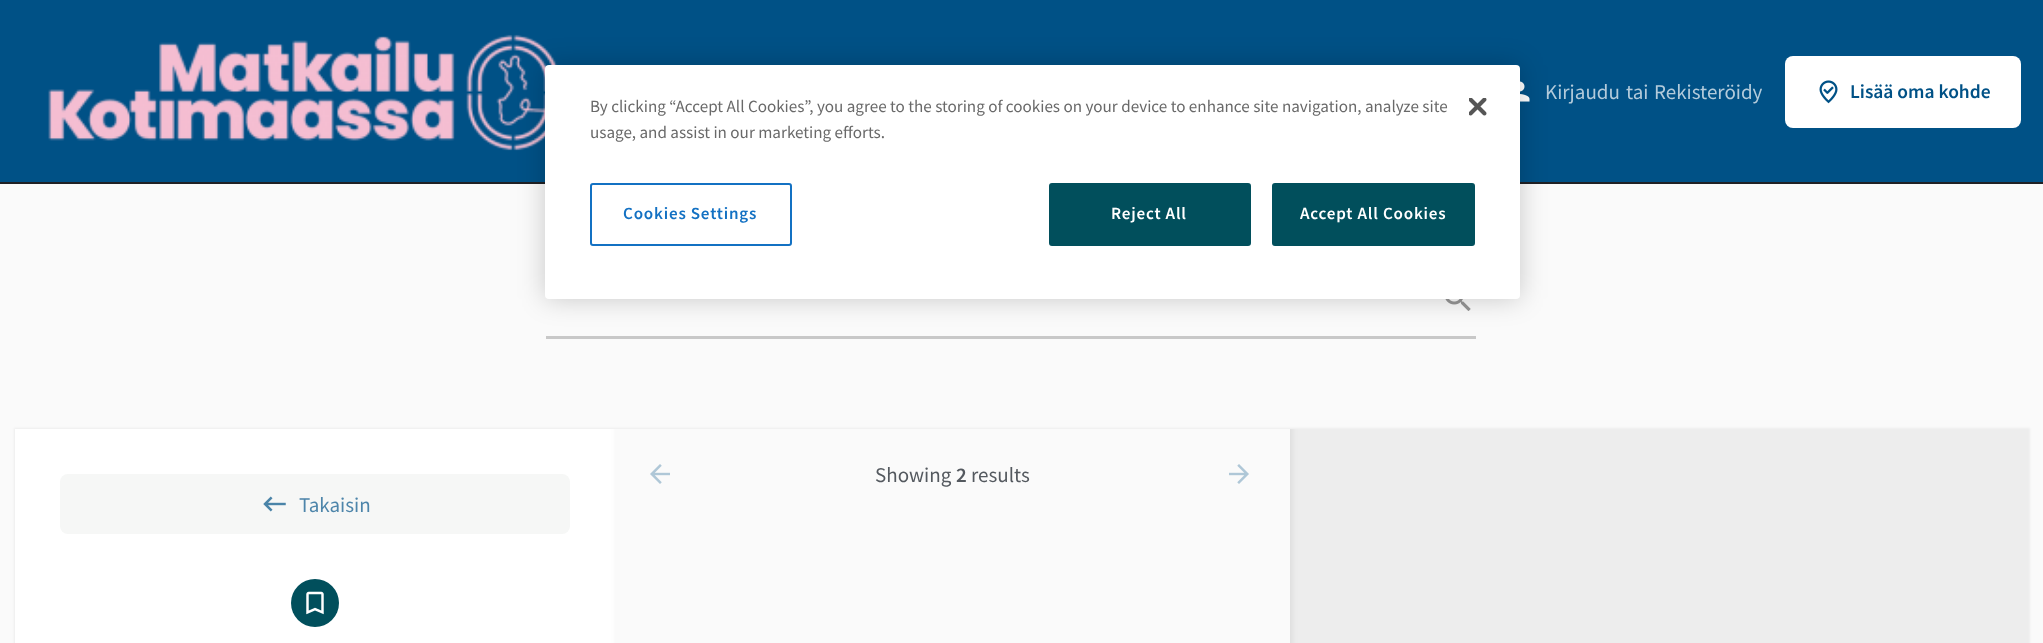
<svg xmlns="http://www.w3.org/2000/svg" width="2043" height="643">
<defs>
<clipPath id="clip1"><rect x="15" y="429" width="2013" height="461"/></clipPath>
</defs>
<rect width="100%" height="100%" fill="#fafafa"/>
<rect width="2043" height="182" fill="#005186"/>
<rect y="182" width="2043" height="2" fill="#202125"/>
<image x="48" y="34" width="510" height="117" href="media/1.png"/>
<image x="1520" y="81" width="10" height="21" href="media/2.png"/>
<text x="1545" y="99" style="font-family:Source Sans Pro;font-size:21px;fill:#b3cbdb">Kirjaudu</text>
<text x="1626" y="99" style="font-family:Source Sans Pro;font-size:21px;fill:#b3cbdb">tai</text>
<text x="1654" y="99" style="font-family:Source Sans Pro;font-size:21px;fill:#b3cbdb">Rekisteröidy</text>
<rect x="1785" y="56" width="236" height="72" rx="8" fill="#fff"/>
<image x="1819" y="80" width="19" height="24" href="media/3.png"/>
<text x="1850" y="98" style="font-family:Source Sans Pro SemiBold;font-size:19.5px;font-weight:600;fill:#005186">Lisää oma kohde</text>
<rect x="546" y="336" width="930" height="3" fill="#c8c8c8"/>
<image x="1445" y="299" width="26" height="12" href="media/4.png"/>
<rect x="14" y="428" width="2016" height="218" fill="#0000000d" filter="blur(1px)"/>
<rect x="15" y="429" width="600" height="214" fill="#fff"/>
<g clip-path="url(#clip1)">
<rect x="617" y="423" width="675" height="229" fill="#00000012" filter="blur(3px)"/>
</g>
<rect x="615" y="429" width="675" height="214" fill="#fafafa"/>
<image x="650" y="464" width="20" height="20" href="media/5.png"/>
<text x="875" y="482" style="font-family:Source Sans Pro;font-size:21px;fill:#54595f">Showing</text>
<text x="956" y="482" style="font-family:Source Sans Pro SemiBold;font-size:21px;font-weight:600;fill:#54595f">2</text>
<text x="971" y="482" style="font-family:Source Sans Pro;font-size:21px;fill:#54595f">results</text>
<image x="1229" y="464" width="20" height="20" href="media/6.png"/>
<rect x="60" y="474" width="510" height="60" rx="8" fill="#f6f7f6"/>
<image x="263" y="496" width="23" height="16" href="media/7.png"/>
<text x="299" y="512" style="font-family:Source Sans Pro;font-size:21px;fill:#4d85aa">Takaisin</text>
<circle cx="315" cy="603" r="24" fill="#014f5c"/>
<image x="306" y="591" width="18" height="24" href="media/8.png"/>
<rect x="545" y="65" width="975" height="234" rx="4" fill="#00000033" filter="blur(13.5px)"/>
<rect x="545" y="65" width="975" height="234" rx="4" fill="#fff"/>
<text x="590" y="112" style="font-family:Source Sans Pro;font-size:17.07px;fill:#696969">By clicking “Accept All Cookies”, you agree to the storing of cookies on your device to enhance site navigation, analyze site</text>
<text x="590" y="138" style="font-family:Source Sans Pro;font-size:17.07px;fill:#696969">usage, and assist in our marketing efforts.</text>
<image x="1469" y="98" width="18" height="18" href="media/9.png"/>
<rect x="591" y="184" width="200" height="61" rx="2" fill="none" stroke="#1371c3" stroke-width="2"/>
<text x="623" y="219" style="font-family:Source Sans Pro SemiBold;font-size:17.07px;font-weight:600;letter-spacing:0.8px;fill:#1371c3">Cookies Settings</text>
<rect x="1050" y="184" width="200" height="61" rx="2" fill="#014f5c" stroke="#014f5c" stroke-width="2"/>
<text x="1111" y="219" style="font-family:Source Sans Pro SemiBold;font-size:17.07px;font-weight:600;letter-spacing:0.8px;fill:#fff">Reject All</text>
<rect x="1273" y="184" width="201" height="61" rx="2" fill="#014f5c" stroke="#014f5c" stroke-width="2"/>
<text x="1300" y="219" style="font-family:Source Sans Pro SemiBold;font-size:17.07px;font-weight:600;letter-spacing:0.8px;fill:#fff">Accept All Cookies</text>
</svg>
